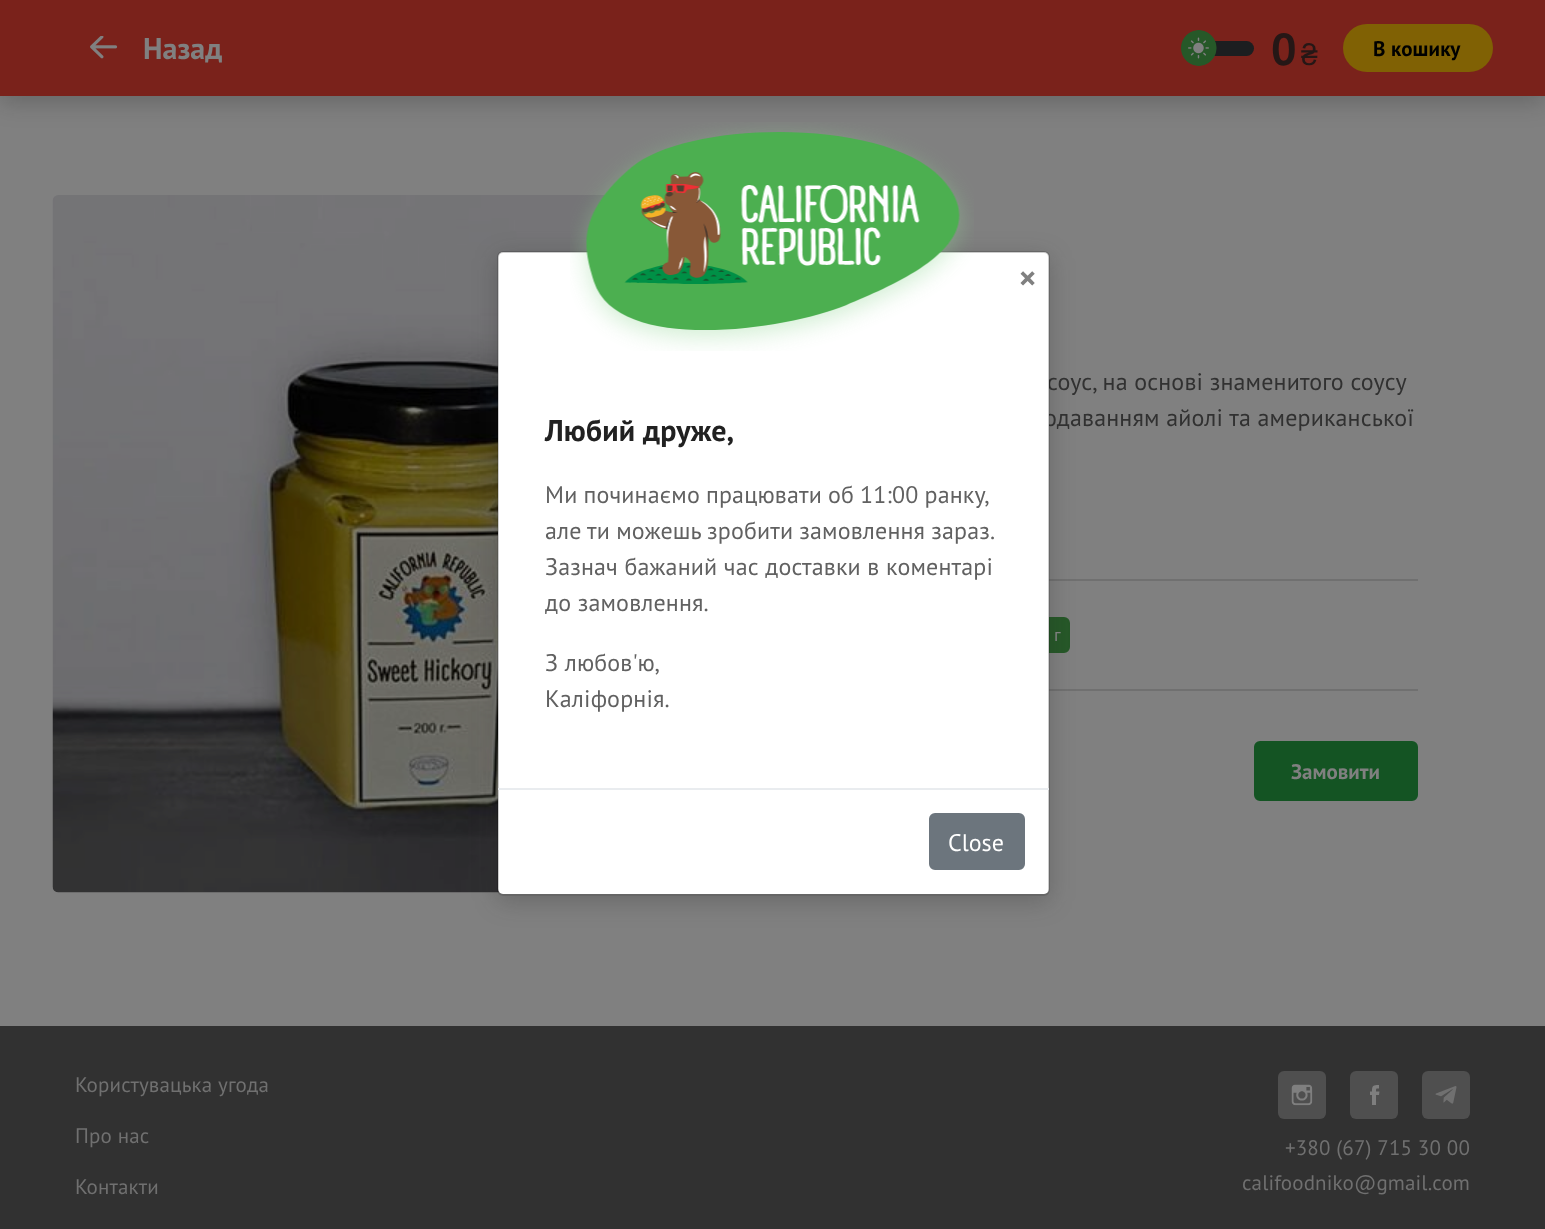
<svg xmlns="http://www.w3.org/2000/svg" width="1545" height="1229">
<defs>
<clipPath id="clip1"><path d="M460 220h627v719h-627zm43 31h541c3.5 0 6 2.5 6 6v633c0 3.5-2.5 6-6 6h-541c-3.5 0-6-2.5-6-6v-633c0-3.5 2.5-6 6-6z" clip-rule="evenodd"/></clipPath>
</defs>
<rect width="100%" height="100%" fill="#808080"/>
<rect y="6" width="1545" height="96" fill="#1111113d" filter="blur(12px)"/>
<rect width="1545" height="96" fill="#7a221b"/>
<image x="90" y="36" width="28" height="23" href="media/1.png"/>
<text x="143" y="59" style="font-family:PT Sans;font-size:30px;font-weight:bold;fill:#808080">Назад</text>
<rect x="1182" y="41" width="72" height="15" rx="7.5" fill="#1c1e20"/>
<image x="1181" y="30" width="36" height="36" href="media/2.png"/>
<text x="1271" y="65" style="font-family:PT Sans;font-size:45px;font-weight:bold;letter-spacing:-2px;fill:#251716">0</text>
<text x="1301" y="65" style="font-family:Liberation Sans;font-size:30px;letter-spacing:0.15px;fill:#251716">₴</text>
<rect x="1343" y="24" width="150" height="48" rx="24" fill="#806104"/>
<text x="1373" y="56" style="font-family:PT Sans;font-size:21px;font-weight:bold;letter-spacing:0.15px;fill:#000">В кошику</text>
<image x="52" y="195" width="553" height="698" href="media/4.png"/>
<rect x="1049" y="579" width="369" height="2" fill="#707070"/>
<rect x="1049" y="689" width="369" height="2" fill="#707070"/>
<rect x="1012" y="618" width="57" height="34" rx="5" fill="#265828" stroke="#265828" stroke-width="2"/>
<g clip-path="url(#clip1)">
<rect x="497" y="257" width="553" height="645" rx="6" fill="#2121213d" filter="blur(12px)"/>
</g>
<text x="1047" y="390" style="font-family:PT Sans;font-size:24px;letter-spacing:0.15px;fill:#313131">соус, на основі знаменитого соусу</text>
<text x="1044" y="426" style="font-family:PT Sans;font-size:24px;letter-spacing:0.15px;fill:#313131">одаванням айолі та американської</text>
<rect x="498" y="252" width="551" height="642" rx="5" fill="#fff"/>
<rect x="498" y="252" width="551" height="643" rx="5" fill="none" stroke="#00000033" stroke-width="2"/>
<image x="570" y="122" width="404" height="229" href="media/3.png"/>
<text x="1018" y="291" style="font-family:'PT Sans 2';font-size:36px;font-weight:bold;fill:#808080">×</text>
<text x="545" y="441" style="font-family:PT Sans;font-size:30px;font-weight:bold;letter-spacing:0.15px;fill:#212121">Любий друже,</text>
<text x="545" y="503" word-spacing="-0.5" style="font-family:PT Sans;font-size:24px;letter-spacing:0.15px;fill:#616161">Ми починаємо працювати об 11:00 ранку,</text>
<text x="545" y="539" word-spacing="-0.5" style="font-family:PT Sans;font-size:24px;letter-spacing:0.15px;fill:#616161">але ти можешь зробити замовлення зараз.</text>
<text x="545" y="575" style="font-family:PT Sans;font-size:24px;letter-spacing:0.15px;fill:#616161">Зазнач бажаний час доставки в коментарі</text>
<text x="545" y="611" style="font-family:PT Sans;font-size:24px;letter-spacing:0.15px;fill:#616161">до замовлення.</text>
<text x="545" y="671" style="font-family:PT Sans;font-size:24px;letter-spacing:0.15px;fill:#616161">З любов'ю,</text>
<text x="545" y="707" style="font-family:PT Sans;font-size:24px;letter-spacing:0.15px;fill:#616161">Каліфорнія.</text>
<rect x="498" y="788" width="551" height="2" fill="#e9ecef"/>
<rect x="930" y="814" width="94" height="55" rx="5" fill="#6c757d" stroke="#6c757d" stroke-width="2"/>
<text x="948" y="851" style="font-family:PT Sans;font-size:24px;fill:#fff">Close</text>
<text x="1054" y="641" style="font-family:PT Sans;font-size:18px;letter-spacing:0.15px;fill:#808080">г</text>
<rect x="1255" y="742" width="162" height="58" rx="5" fill="#145423" stroke="#145423" stroke-width="2"/>
<text x="1291" y="779" style="font-family:PT Sans;font-size:21px;font-weight:bold;fill:#808080">Замовити</text>
<rect y="1026" width="1545" height="203" fill="#313131"/>
<text x="75" y="1092" style="font-family:PT Sans;font-size:21px;letter-spacing:0.15px;fill:#707070">Користувацька угода</text>
<text x="75" y="1143" style="font-family:PT Sans;font-size:21px;letter-spacing:0.15px;fill:#707070">Про нас</text>
<text x="75" y="1194" style="font-family:PT Sans;font-size:21px;letter-spacing:0.15px;fill:#707070">Контакти</text>
<image x="1278" y="1071" width="48" height="48" href="media/5.png"/>
<rect x="1350" y="1071" width="48" height="48" rx="6" fill="#4f4f4f"/>
<path d="M1379.5 1091.5h-3.5c0-3.5 0-3 3-3v-3.5c-6 0-7 .5-7 6.5h-2v3.5h2v10h4v-10h3z" fill="#7f7f7f" fill-rule="evenodd"/>
<rect x="1422" y="1071" width="48" height="48" rx="6" fill="#4f4f4f"/>
<image x="1435" y="1086" width="22" height="18" href="media/6.png"/>
<text x="1285" y="1155" style="font-family:PT Sans;font-size:21px;letter-spacing:0.15px;fill:#707070">+380 (67) 715 30 00</text>
<text x="1242" y="1190" style="font-family:PT Sans;font-size:21px;letter-spacing:0.15px;fill:#707070">califoodniko@gmail.com</text>
</svg>
